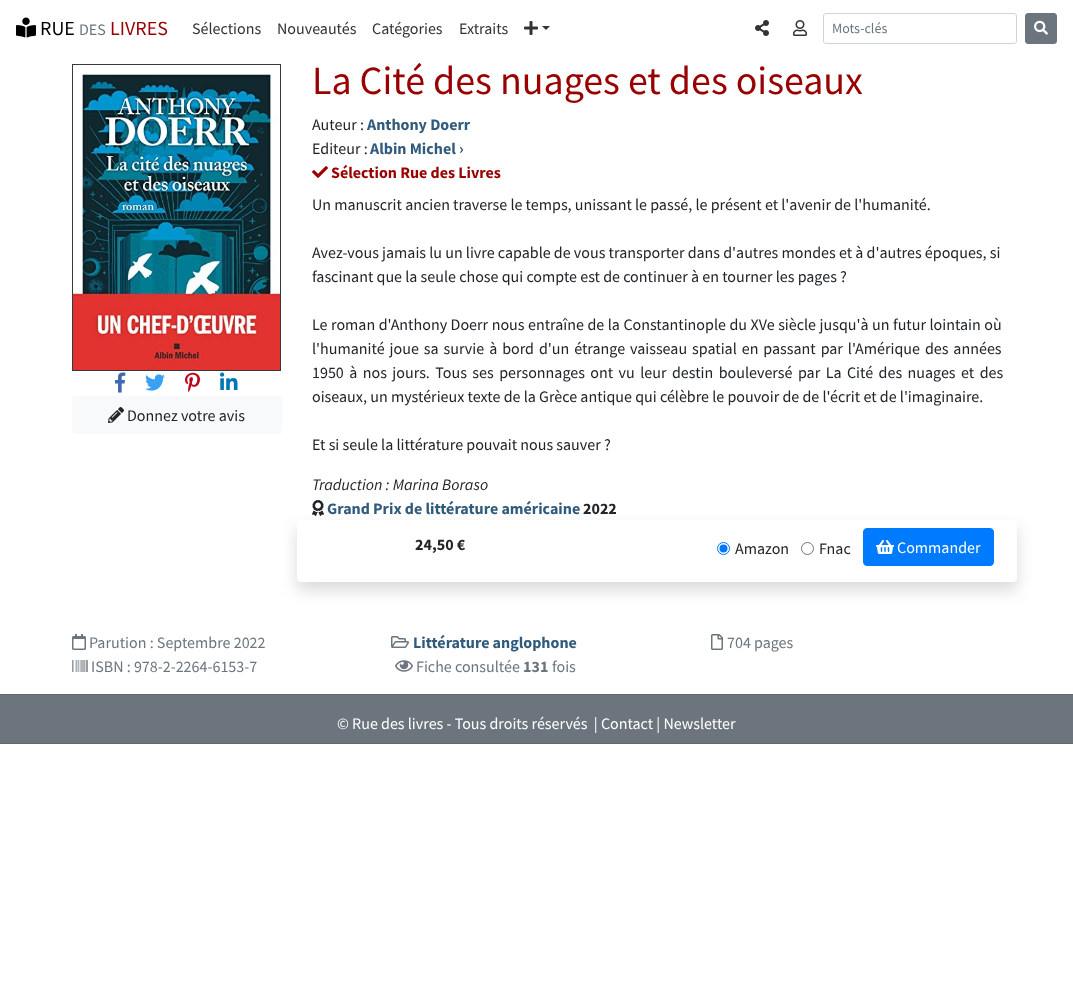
<svg xmlns="http://www.w3.org/2000/svg" width="1073" height="998">
<rect width="100%" height="100%" fill="#fff"/>
<image x="16" y="17" width="20" height="21" href="media/1.png"/>
<text x="40" y="35" style="font-family:Source Sans Pro;font-size:20px;fill:#000">RUE</text>
<text x="79" y="35" style="font-family:Source Sans Pro;font-size:16px;fill:#6c757d">DES</text>
<text x="110" y="35" style="font-family:Source Sans Pro;font-size:20px;fill:#900">LIVRES</text>
<text x="192" y="34" style="font-family:Source Sans Pro;font-size:16px;fill:#333">Sélections</text>
<text x="277" y="34" style="font-family:Source Sans Pro;font-size:16px;fill:#333">Nouveautés</text>
<text x="372" y="34" style="font-family:Source Sans Pro;font-size:16px;fill:#333">Catégories</text>
<text x="459" y="34" style="font-family:Source Sans Pro;font-size:16px;fill:#333">Extraits</text>
<image x="524" y="21" width="14" height="14" href="media/2.png"/>
<path d="M542 26h8l-4 4z" fill="#333"/>
<image x="755" y="20" width="14" height="16" href="media/3.png"/>
<image x="793" y="20" width="14" height="16" href="media/4.png"/>
<rect x="823.5" y="13.5" width="193" height="30" rx="2.5" fill="none" stroke="#ced4da"/>
<text x="832" y="33" style="font-family:Source Sans Pro;font-size:14px;fill:#6c757d">Mots-clés</text>
<rect x="1025.5" y="13.5" width="31" height="30" rx="2.5" fill="#6c757d" stroke="#6c757d"/>
<image x="1034" y="20" width="14" height="15" href="media/5.png"/>
<rect x="72.5" y="64.5" width="208" height="306" fill="none" stroke="#343a40"/>
<image x="73" y="74" width="207" height="296" href="media/6.png"/>
<image x="115" y="372" width="11" height="21" href="media/7.png"/>
<image x="145" y="374" width="20" height="17" href="media/8.png"/>
<image x="185" y="372" width="15" height="21" href="media/9.png"/>
<image x="220" y="372" width="18" height="18" href="media/10.png"/>
<rect x="72" y="396" width="210" height="38" rx="4" fill="#f8f9fa"/>
<image x="108" y="407" width="16" height="16" href="media/11.png"/>
<text x="127" y="421" style="font-family:Source Sans Pro;font-size:16px;fill:#212529">Donnez votre avis</text>
<text x="312" y="94" style="font-family:Source Sans Pro;font-size:40px;fill:#900">La Cité des nuages et des oiseaux</text>
<text x="312" y="130" style="font-family:Source Sans Pro;font-size:16px;fill:#212529">Auteur :</text>
<text x="367" y="130" style="font-family:Source Sans Pro;font-size:16px;font-weight:bold;fill:#315b7d">Anthony Doerr</text>
<text x="312" y="154" style="font-family:Source Sans Pro;font-size:16px;fill:#212529">Editeur :</text>
<text x="370" y="154" style="font-family:Source Sans Pro;font-size:16px;font-weight:bold;fill:#315b7d">Albin Michel ›</text>
<image x="312" y="166" width="16" height="12" href="media/12.png"/>
<text x="331" y="178" style="font-family:Source Sans Pro;font-size:16px;font-weight:bold;fill:#900">Sélection Rue des Livres</text>
<text x="312" y="210" style="font-family:Source Sans Pro;font-size:16px;fill:#212529">Un manuscrit ancien traverse le temps, unissant le passé, le présent et l'avenir de l'humanité.</text>
<text x="312" y="258" style="font-family:Source Sans Pro;font-size:16px;fill:#212529">Avez-vous jamais lu un livre capable de vous transporter dans d'autres mondes et à d'autres époques, si</text>
<text x="312" y="282" style="font-family:Source Sans Pro;font-size:16px;fill:#212529">fascinant que la seule chose qui compte est de continuer à en tourner les pages ?</text>
<text x="312" y="330" word-spacing="0.3" style="font-family:Source Sans Pro;font-size:16px;fill:#212529">Le roman d'Anthony Doerr nous entraîne de la Constantinople du XVe siècle jusqu'à un futur lointain où</text>
<text x="312" y="354" word-spacing="1.75" style="font-family:Source Sans Pro;font-size:16px;fill:#212529">l'humanité joue sa survie à bord d'un étrange vaisseau spatial en passant par l'Amérique des années</text>
<text x="312" y="378" word-spacing="2.25" style="font-family:Source Sans Pro;font-size:16px;fill:#212529">1950 à nos jours. Tous ses personnages ont vu leur destin bouleversé par La Cité des nuages et des</text>
<text x="312" y="402" style="font-family:Source Sans Pro;font-size:16px;fill:#212529">oiseaux, un mystérieux texte de la Grèce antique qui célèbre le pouvoir de de l'écrit et de l'imaginaire.</text>
<text x="312" y="450" style="font-family:Source Sans Pro;font-size:16px;fill:#212529">Et si seule la littérature pouvait nous sauver ?</text>
<text x="312" y="490" style="font-family:Source Sans Pro;font-size:16px;font-style:italic;fill:#212529">Traduction : Marina Boraso</text>
<rect x="297" y="528" width="720" height="62" rx="4" fill="#00000026" filter="blur(8px)"/>
<image x="312" y="500" width="12" height="16" href="media/13.png"/>
<text x="327" y="514" style="font-family:Source Sans Pro;font-size:16px;font-weight:bold;fill:#315b7d">Grand Prix de littérature américaine</text>
<text x="583" y="514" style="font-family:Source Sans Pro;font-size:16px;font-weight:bold;fill:#212529">2022</text>
<rect x="297" y="520" width="720" height="62" rx="4" fill="#fff"/>
<text x="415" y="550" style="font-family:Source Sans Pro;font-size:16px;font-weight:bold;fill:#212529">24,50 €</text>
<circle cx="723.5" cy="548.5" r="6" fill="none" stroke="#0075ff"/>
<circle cx="723.5" cy="548.5" r="4" fill="#0075ff"/>
<text x="735" y="554" style="font-family:Source Sans Pro;font-size:16px;fill:#212529">Amazon</text>
<circle cx="807.5" cy="548.5" r="6" fill="none" stroke="#767676"/>
<text x="819" y="554" style="font-family:Source Sans Pro;font-size:16px;fill:#212529">Fnac</text>
<rect x="863.5" y="528.5" width="130" height="37" rx="3.5" fill="#007bff" stroke="#007bff"/>
<image x="876" y="540" width="18" height="14" href="media/14.png"/>
<text x="897" y="553" style="font-family:Source Sans Pro;font-size:16px;fill:#fff">Commander</text>
<image x="72" y="634" width="14" height="16" href="media/15.png"/>
<text x="89" y="648" style="font-family:Source Sans Pro;font-size:16px;fill:#6c757d">Parution : Septembre 2022</text>
<image x="391" y="636" width="18" height="12" href="media/16.png"/>
<text x="413" y="648" style="font-family:Source Sans Pro;font-size:16px;font-weight:bold;fill:#315b7d">Littérature anglophone</text>
<image x="711" y="634" width="12" height="16" href="media/17.png"/>
<text x="727" y="648" style="font-family:Source Sans Pro;font-size:16px;fill:#6c757d">704 pages</text>
<image x="72" y="660" width="16" height="12" href="media/18.png"/>
<text x="91" y="672" style="font-family:Source Sans Pro;font-size:16px;fill:#6c757d">ISBN : 978-2-2264-6153-7</text>
<image x="395" y="660" width="18" height="12" href="media/19.png"/>
<text x="416" y="672" style="font-family:Source Sans Pro;font-size:16px;fill:#6c757d">Fiche consultée</text>
<text x="523" y="672" style="font-family:Source Sans Pro;font-size:16px;font-weight:bold;fill:#6c757d">131</text>
<text x="552" y="672" style="font-family:Source Sans Pro;font-size:16px;fill:#6c757d">fois</text>
<rect y="695" width="1073" height="48" fill="#6c757d"/>
<rect y="743" width="1073" height="1" fill="#666"/>
<rect y="694" width="1073" height="1" fill="#616971"/>
<text x="337" y="729" style="font-family:Source Sans Pro;font-size:16px;fill:#fff" xml:space="preserve">© Rue des livres - Tous droits réservés  | Contact | Newsletter</text>
</svg>
